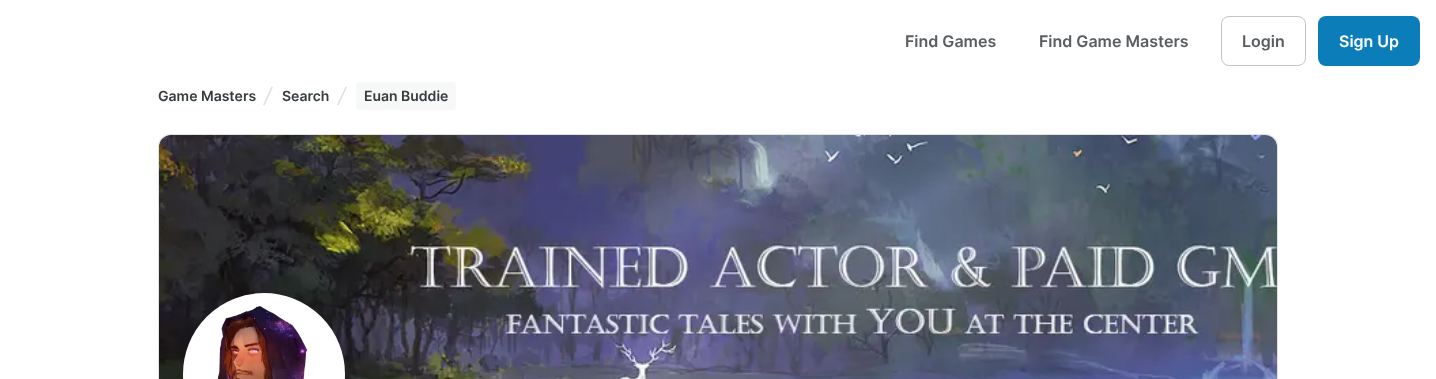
<svg xmlns="http://www.w3.org/2000/svg" width="1436" height="379">
<rect width="100%" height="100%" fill="#fff"/>
<text x="905" y="47" style="font-family:Inter;font-size:16px;font-weight:600;fill:#5a5e61">Find Games</text>
<text x="1039" y="47" style="font-family:Inter;font-size:16px;font-weight:600;fill:#5a5e61">Find Game Masters</text>
<rect x="1221.5" y="16.5" width="84" height="49" rx="7.5" fill="none" stroke="#c3c6c6"/>
<text x="1242" y="47" style="font-family:Inter;font-size:16px;font-weight:600;fill:#5a5e61">Login</text>
<rect x="1318" y="16" width="102" height="50" rx="8" fill="#0b7db8"/>
<text x="1339" y="47" style="font-family:Inter;font-size:16px;font-weight:600;fill:#fff">Sign Up</text>
<text x="158" y="101" style="font-family:Inter;font-size:14px;font-weight:600;fill:#363c3f">Game Masters</text>
<path d="M264 104.5l8-17" fill="none" stroke="#e0e1e2" stroke-width="1.7" stroke-linecap="round" stroke-linejoin="round"/>
<text x="282" y="101" style="font-family:Inter;font-size:14px;font-weight:600;fill:#363c3f">Search</text>
<path d="M338 104.5l8-17" fill="none" stroke="#e0e1e2" stroke-width="1.7" stroke-linecap="round" stroke-linejoin="round"/>
<rect x="356" y="82" width="100" height="28" rx="4" fill="#f7f8f8"/>
<text x="364" y="101" style="font-family:Inter;font-size:14px;font-weight:600;fill:#363c3f">Euan Buddie</text>
<rect x="158.5" y="134.5" width="1119" height="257" rx="11.5" fill="none" stroke="#e0e1e2"/>
<image x="159" y="135" width="1118" height="244" href="media/1.png"/>
<circle cx="264" cy="374" r="79" fill="#fff" stroke="#fff" stroke-width="4"/>
<image x="217" y="306" width="91" height="73" href="media/2.png"/>
</svg>
